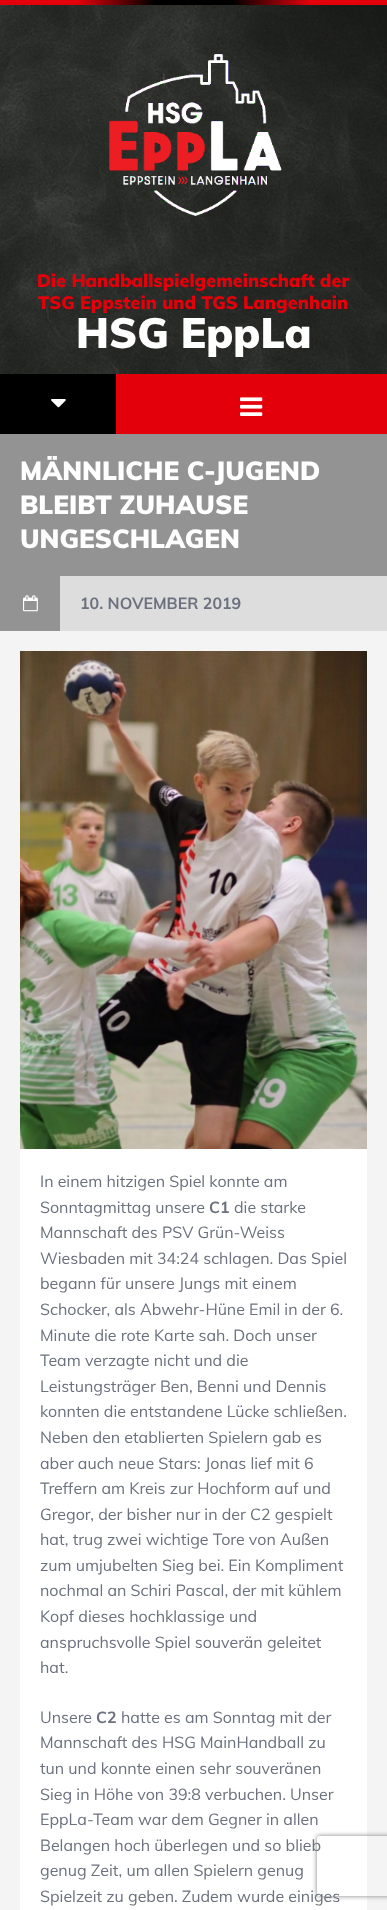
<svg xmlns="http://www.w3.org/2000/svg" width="387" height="1910">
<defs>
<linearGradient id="g1" gradientUnits="userSpaceOnUse" x1="0" y1="2.5" x2="387" y2="2.5"><stop offset="0" stop-color="#e3000b"/><stop offset="0.2" stop-color="#e3000b"/><stop offset="0.4" stop-color="#000"/><stop offset="0.6" stop-color="#000"/><stop offset="0.8" stop-color="#e3000b"/><stop offset="1" stop-color="#e3000b"/></linearGradient>
<clipPath id="clip1"><path d="M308 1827h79v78h-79zm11 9h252c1 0 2 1 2 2v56c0 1-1 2-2 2h-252c-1 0-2-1-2-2v-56c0-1 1-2 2-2z" clip-rule="evenodd"/></clipPath>
</defs>
<rect width="100%" height="100%" fill="#f4f4f4"/>
<rect width="387" height="5" fill="url(#g1)"/>
<image x="0" y="5" width="387" height="369" href="media/1.png"/>
<image x="109" y="53" width="173" height="163" href="media/2.png"/>
<text x="37" y="287" style="font-family:Muli;font-size:18px;font-weight:900;fill:#e3000b">Die Handballspielgemeinschaft der</text>
<text x="38" y="309" style="font-family:Muli;font-size:18px;font-weight:900;fill:#e3000b">TSG Eppstein und TGS Langenhain</text>
<text x="76" y="348" style="font-family:Muli;font-size:42px;font-weight:900;fill:#fff">HSG EppLa</text>
<rect y="374" width="116" height="60" fill="#000"/>
<image x="51" y="399" width="15" height="9" href="media/3.png"/>
<rect x="116" y="374" width="271" height="60" fill="#e3000b"/>
<image x="240" y="397" width="23" height="19" href="media/4.png"/>
<rect y="434" width="387" height="142" fill="#939393"/>
<text x="20" y="480" style="font-family:Muli;font-size:26px;font-weight:900;fill:#fff">MÄNNLICHE C-JUGEND</text>
<text x="20" y="514" style="font-family:Muli;font-size:26px;font-weight:900;fill:#fff">BLEIBT ZUHAUSE</text>
<text x="20" y="548" style="font-family:Muli;font-size:26px;font-weight:900;fill:#fff">UNGESCHLAGEN</text>
<rect x="60" y="576" width="327" height="55" fill="#ddd"/>
<rect y="576" width="60" height="55" fill="#939393"/>
<image x="23" y="595" width="15" height="17" href="media/5.png"/>
<text x="80" y="609" style="font-family:Muli;font-size:16px;font-weight:bold;fill:#6b717e">10. NOVEMBER 2019</text>
<image x="20" y="651" width="347" height="498" href="media/6.png"/>
<rect x="20" y="1149" width="347" height="761" fill="#fff"/>
<text x="40" y="1187" style="font-family:Muli;font-size:16px;fill:#6b717e">In einem hitzigen Spiel konnte am</text>
<text x="40" y="1213" style="font-family:Muli;font-size:16px;fill:#6b717e">Sonntagmittag unsere</text>
<text x="209" y="1213" style="font-family:Muli;font-size:16px;font-weight:bold;fill:#6b717e">C1</text>
<text x="234" y="1213" style="font-family:Muli;font-size:16px;fill:#6b717e">die starke</text>
<text x="40" y="1238" style="font-family:Muli;font-size:16px;fill:#6b717e">Mannschaft des PSV Grün-Weiss</text>
<text x="40" y="1264" style="font-family:Muli;font-size:16px;fill:#6b717e">Wiesbaden mit 34:24 schlagen. Das Spiel</text>
<text x="40" y="1289" style="font-family:Muli;font-size:16px;fill:#6b717e">begann für unsere Jungs mit einem</text>
<text x="40" y="1315" style="font-family:Muli;font-size:16px;fill:#6b717e">Schocker, als Abwehr-Hüne Emil in der 6.</text>
<text x="40" y="1341" style="font-family:Muli;font-size:16px;fill:#6b717e">Minute die rote Karte sah. Doch unser</text>
<text x="40" y="1366" style="font-family:Muli;font-size:16px;fill:#6b717e">Team verzagte nicht und die</text>
<text x="40" y="1392" style="font-family:Muli;font-size:16px;fill:#6b717e">Leistungsträger Ben, Benni und Dennis</text>
<text x="40" y="1417" style="font-family:Muli;font-size:16px;fill:#6b717e">konnten die entstandene Lücke schließen.</text>
<text x="40" y="1443" style="font-family:Muli;font-size:16px;fill:#6b717e">Neben den etablierten Spielern gab es</text>
<text x="40" y="1469" style="font-family:Muli;font-size:16px;fill:#6b717e">aber auch neue Stars: Jonas lief mit 6</text>
<text x="40" y="1494" style="font-family:Muli;font-size:16px;fill:#6b717e">Treffern am Kreis zur Hochform auf und</text>
<text x="40" y="1520" style="font-family:Muli;font-size:16px;fill:#6b717e">Gregor, der bisher nur in der C2 gespielt</text>
<text x="40" y="1545" style="font-family:Muli;font-size:16px;fill:#6b717e">hat, trug zwei wichtige Tore von Außen</text>
<text x="40" y="1571" style="font-family:Muli;font-size:16px;fill:#6b717e">zum umjubelten Sieg bei. Ein Kompliment</text>
<text x="40" y="1596" style="font-family:Muli;font-size:16px;fill:#6b717e">nochmal an Schiri Pascal, der mit kühlem</text>
<text x="40" y="1622" style="font-family:Muli;font-size:16px;fill:#6b717e">Kopf dieses hochklassige und</text>
<text x="40" y="1648" style="font-family:Muli;font-size:16px;fill:#6b717e">anspruchsvolle Spiel souverän geleitet</text>
<text x="40" y="1673" style="font-family:Muli;font-size:16px;fill:#6b717e">hat.</text>
<text x="40" y="1723" style="font-family:Muli;font-size:16px;fill:#6b717e">Unsere</text>
<text x="96" y="1723" style="font-family:Muli;font-size:16px;font-weight:bold;fill:#6b717e">C2</text>
<text x="121" y="1723" style="font-family:Muli;font-size:16px;fill:#6b717e">hatte es am Sonntag mit der</text>
<text x="40" y="1748" style="font-family:Muli;font-size:16px;fill:#6b717e">Mannschaft des HSG MainHandball zu</text>
<text x="40" y="1774" style="font-family:Muli;font-size:16px;fill:#6b717e">tun und konnte einen sehr souveränen</text>
<text x="40" y="1800" style="font-family:Muli;font-size:16px;fill:#6b717e">Sieg in Höhe von 39:8 verbuchen. Unser</text>
<text x="40" y="1825" style="font-family:Muli;font-size:16px;fill:#6b717e">EppLa-Team war dem Gegner in allen</text>
<text x="40" y="1851" style="font-family:Muli;font-size:16px;fill:#6b717e">Belangen hoch überlegen und so blieb</text>
<text x="40" y="1876" style="font-family:Muli;font-size:16px;fill:#6b717e">genug Zeit, um allen Spielern genug</text>
<text x="40" y="1902" style="font-family:Muli;font-size:16px;fill:#6b717e">Spielzeit zu geben. Zudem wurde einiges</text>
<g clip-path="url(#clip1)">
<rect x="317" y="1836" width="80" height="60" rx="2" fill="#808080" filter="blur(2.5px)"/>
</g>
</svg>
